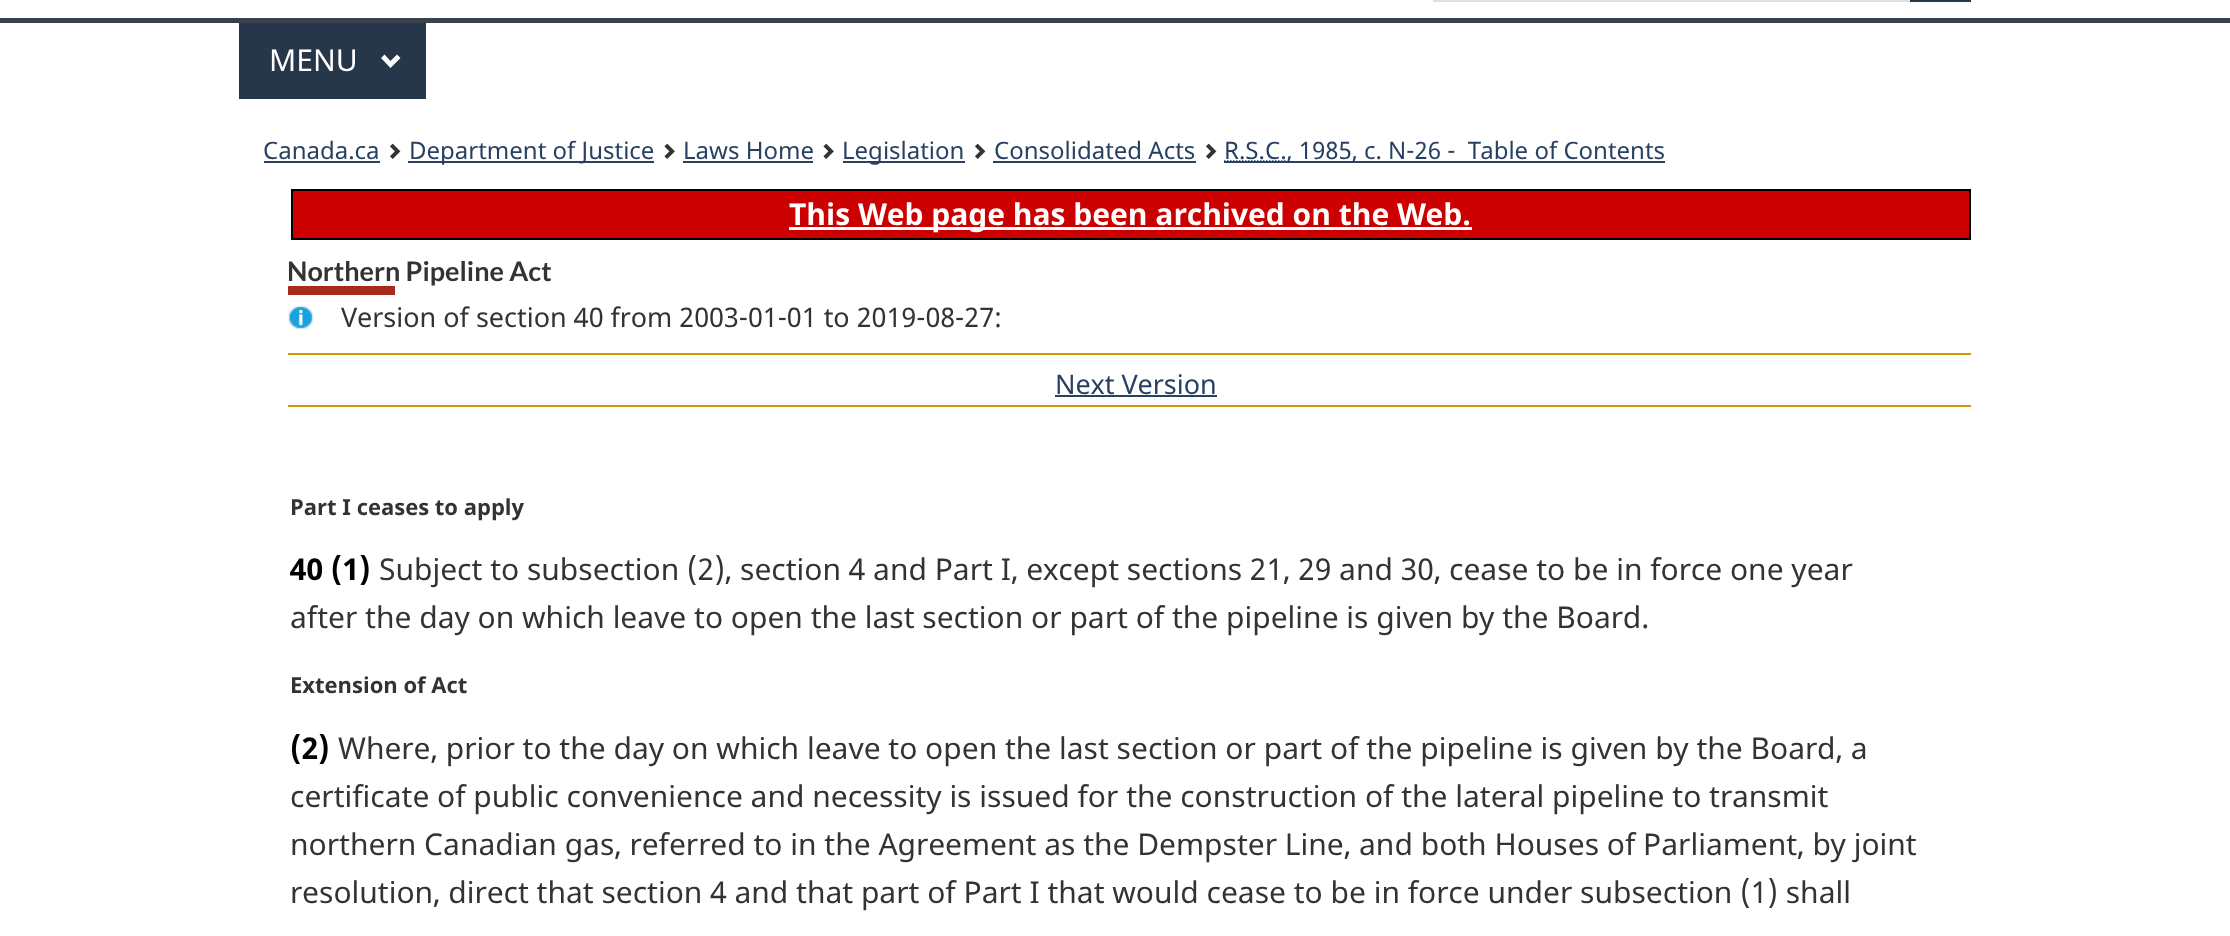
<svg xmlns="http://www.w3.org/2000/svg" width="2230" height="936">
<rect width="100%" height="100%" fill="#fff"/>
<rect x="1434" y="-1" width="536" height="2" fill="none" stroke="#e0e0e0" stroke-width="2"/>
<rect x="1910" width="61" height="2" fill="#26374a"/>
<rect y="18" width="2230" height="5" fill="#38414d"/>
<rect x="239" y="23" width="187" height="76" fill="#26374a"/>
<text x="269" y="71" style="font-family:Noto Sans;font-size:30px;fill:#fff">MENU</text>
<path d="M400.5 58l-10 10l-9.5-10l3.5-3.5l6 6.5l6.5-6.5z" fill="#fff"/>
<text x="263" y="159" style="font-family:Noto Sans;font-size:24px;fill:#284162">Canada.ca</text>
<rect x="264" y="161" width="116" height="2" fill="#284162"/>
<image x="390" y="143" width="11" height="16" href="media/1.png"/>
<rect x="408" y="161" width="246" height="2" fill="#284162"/>
<text x="409" y="159" style="font-family:Noto Sans;font-size:24px;fill:#284162">Department of Justice</text>
<image x="664" y="143" width="11" height="16" href="media/2.png"/>
<text x="683" y="159" style="font-family:Noto Sans;font-size:24px;fill:#284162">Laws Home</text>
<rect x="683" y="161" width="130" height="2" fill="#284162"/>
<image x="823" y="143" width="11" height="16" href="media/2.png"/>
<rect x="843" y="161" width="122" height="2" fill="#284162"/>
<text x="842" y="159" style="font-family:Noto Sans;font-size:24px;fill:#284162">Legislation</text>
<image x="975" y="143" width="11" height="16" href="media/1.png"/>
<text x="994" y="159" style="font-family:Noto Sans;font-size:24px;fill:#284162">Consolidated Acts</text>
<rect x="993" y="161" width="203" height="2" fill="#284162"/>
<image x="1206" y="143" width="11" height="16" href="media/1.png"/>
<path d="M1224 161h62.5" fill="none" stroke="#284162" stroke-width="1.5" stroke-dasharray="1.5 1.5"/>
<rect x="1224" y="161" width="441" height="2" fill="#284162"/>
<text x="1224" y="159" style="font-family:Noto Sans;font-size:24px;fill:#284162" xml:space="preserve">R.S.C., 1985, c. N-26 -  Table of Contents</text>
<rect x="292" y="190" width="1678" height="49" fill="#c00" stroke="#000" stroke-width="2"/>
<rect x="789" y="227" width="683" height="3" fill="#fff"/>
<text x="789" y="225" style="font-family:Noto Sans;font-size:30px;font-weight:bold;fill:#fff">This Web page has been archived on the Web.</text>
<rect x="288" y="286" width="107" height="9" fill="#a62a1e"/>
<text x="287" y="281" style="font-family:Lato;font-size:27px;font-weight:bold;fill:#333">Northern Pipeline Act</text>
<image x="288" y="305" width="26" height="25" href="media/3.png"/>
<text x="341" y="327" style="font-family:Noto Sans;font-size:27px;fill:#333">Version of section 40 from 2003-01-01 to 2019-08-27:</text>
<rect x="288" y="353" width="1683" height="2" fill="#c90"/>
<rect x="288" y="405" width="1683" height="2" fill="#c90"/>
<text x="1055" y="394" style="font-family:Noto Sans;font-size:27px;fill:#284162">Next Version</text>
<rect x="1055" y="395" width="162" height="2" fill="#284162"/>
<text x="290" y="515" style="font-family:Noto Sans;font-size:22px;font-weight:bold;fill:#333">Part I ceases to apply</text>
<text x="290" y="580" style="font-family:Noto Sans;font-size:30px;font-weight:bold;fill:#000">40 (1)</text>
<text x="379" y="580" style="font-family:Noto Sans;font-size:30px;fill:#333">Subject to subsection (2), section 4 and Part I, except sections 21, 29 and 30, cease to be in force one year</text>
<text x="290" y="628" style="font-family:Noto Sans;font-size:30px;fill:#333">after the day on which leave to open the last section or part of the pipeline is given by the Board.</text>
<text x="290" y="693" style="font-family:Noto Sans;font-size:22px;font-weight:bold;fill:#333">Extension of Act</text>
<text x="290" y="759" style="font-family:Noto Sans;font-size:30px;font-weight:bold;fill:#000">(2)</text>
<text x="338" y="759" style="font-family:Noto Sans;font-size:30px;fill:#333">Where, prior to the day on which leave to open the last section or part of the pipeline is given by the Board, a</text>
<text x="290" y="807" style="font-family:Noto Sans;font-size:30px;fill:#333">certificate of public convenience and necessity is issued for the construction of the lateral pipeline to transmit</text>
<text x="290" y="855" style="font-family:Noto Sans;font-size:30px;fill:#333">northern Canadian gas, referred to in the Agreement as the Dempster Line, and both Houses of Parliament, by joint</text>
<text x="290" y="903" style="font-family:Noto Sans;font-size:30px;fill:#333">resolution, direct that section 4 and that part of Part I that would cease to be in force under subsection (1) shall</text>
</svg>
